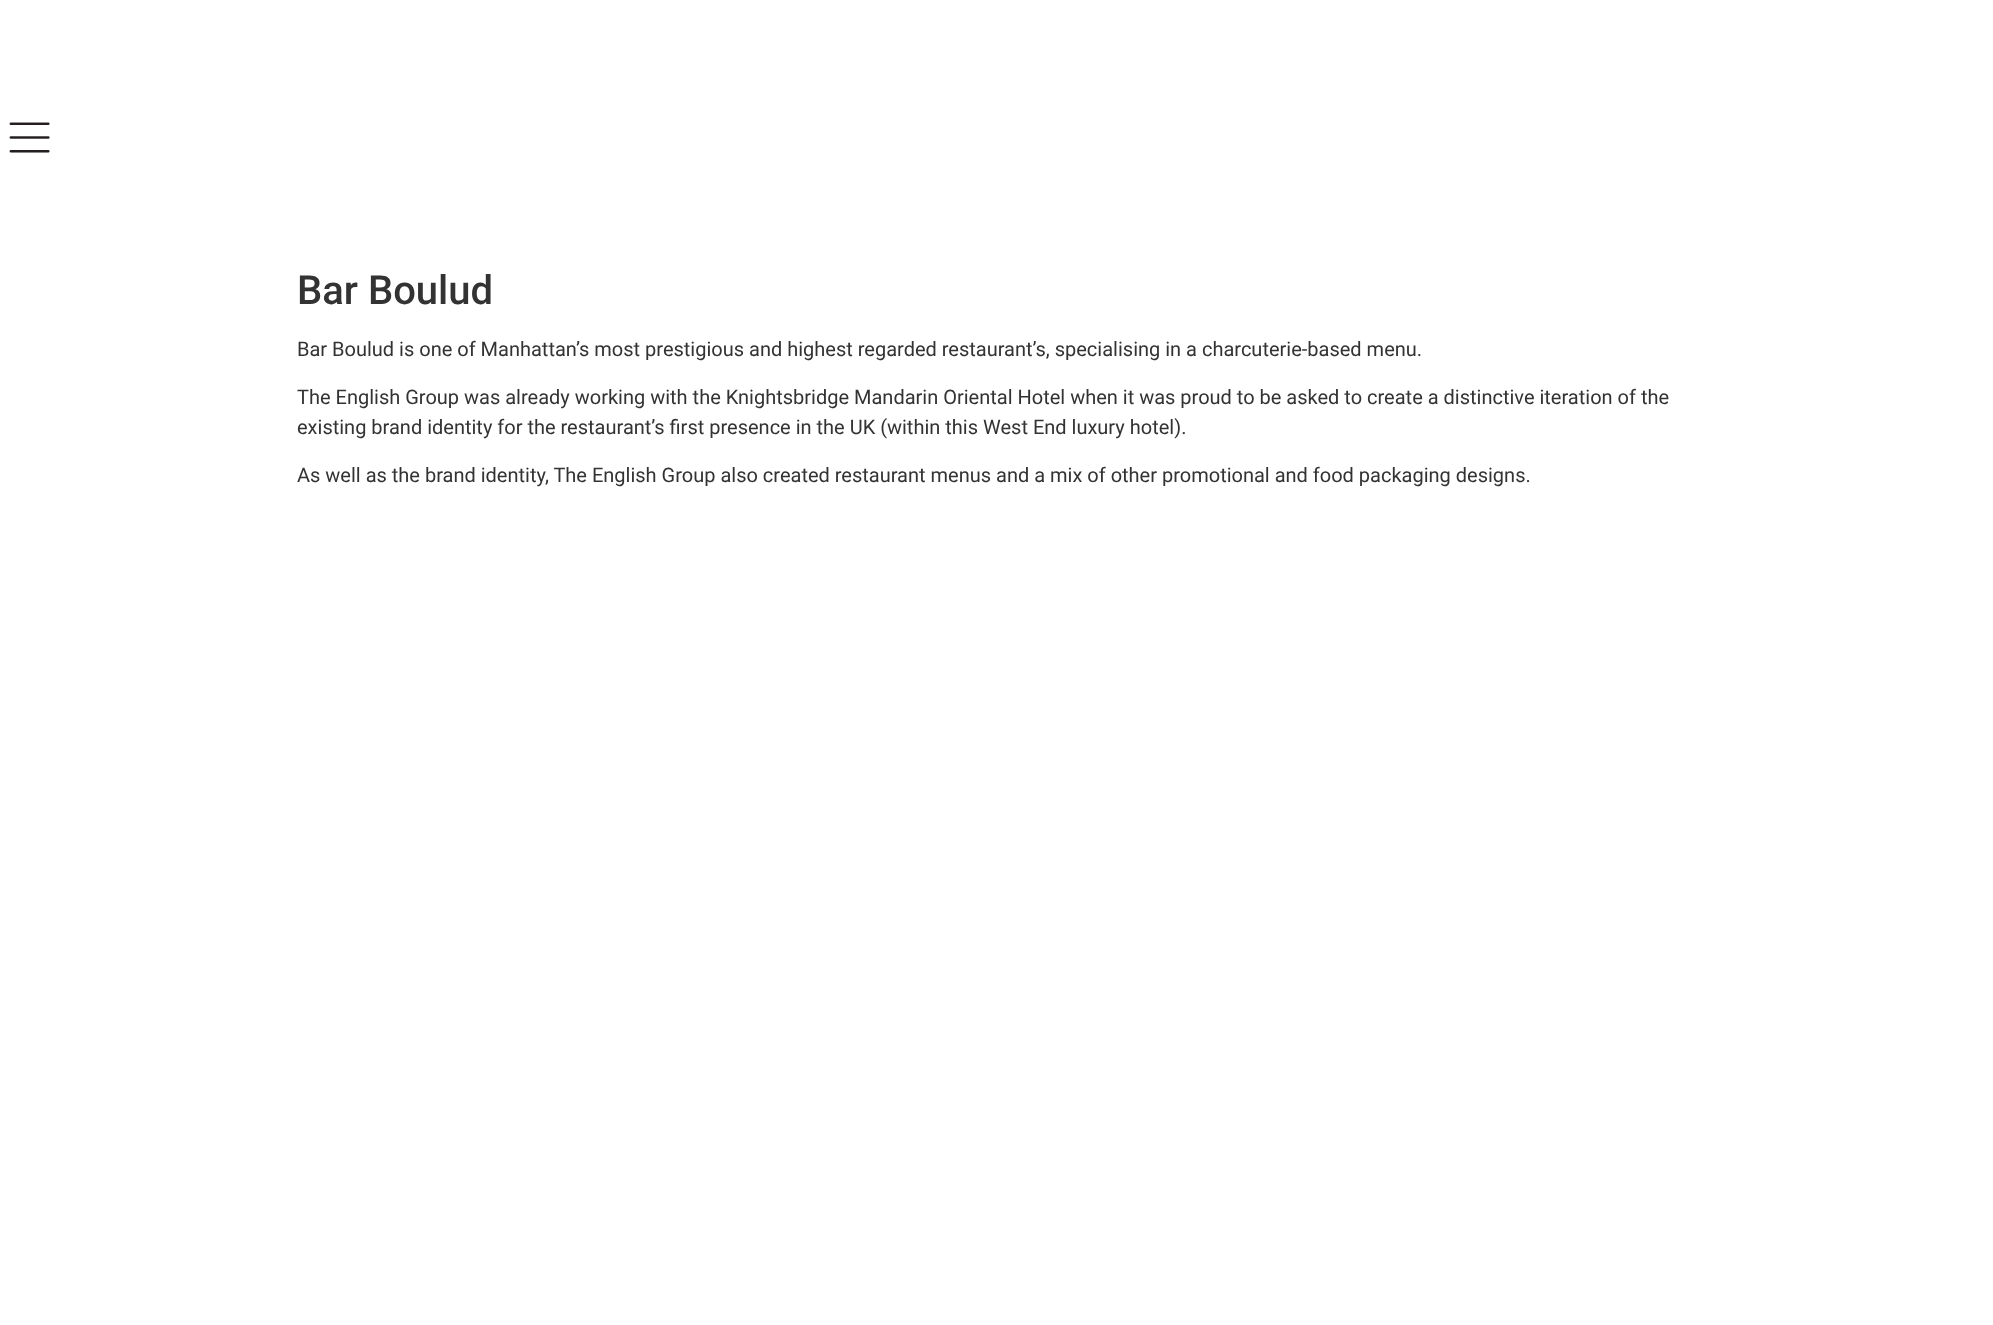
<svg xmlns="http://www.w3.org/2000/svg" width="1993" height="1325">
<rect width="100%" height="100%" fill="#fff"/>
<image x="9" y="122" width="41" height="31" href="media/1.png"/>
<text x="297" y="304" style="font-family:Roboto;font-size:40px;font-weight:500;fill:#333">Bar Boulud</text>
<text x="297" y="356" style="font-family:Roboto;font-size:20px;fill:#333">Bar Boulud is one of Manhattan’s most prestigious and highest regarded restaurant’s, specialising in a charcuterie-based menu.</text>
<text x="297" y="404" style="font-family:Roboto;font-size:20px;fill:#333">The English Group was already working with the Knightsbridge Mandarin Oriental Hotel when it was proud to be asked to create a distinctive iteration of the</text>
<text x="297" y="434" style="font-family:Roboto;font-size:20px;fill:#333">existing brand identity for the restaurant’s first presence in the UK (within this West End luxury hotel).</text>
<text x="297" y="482" style="font-family:Roboto;font-size:20px;fill:#333">As well as the brand identity, The English Group also created restaurant menus and a mix of other promotional and food packaging designs.</text>
</svg>
